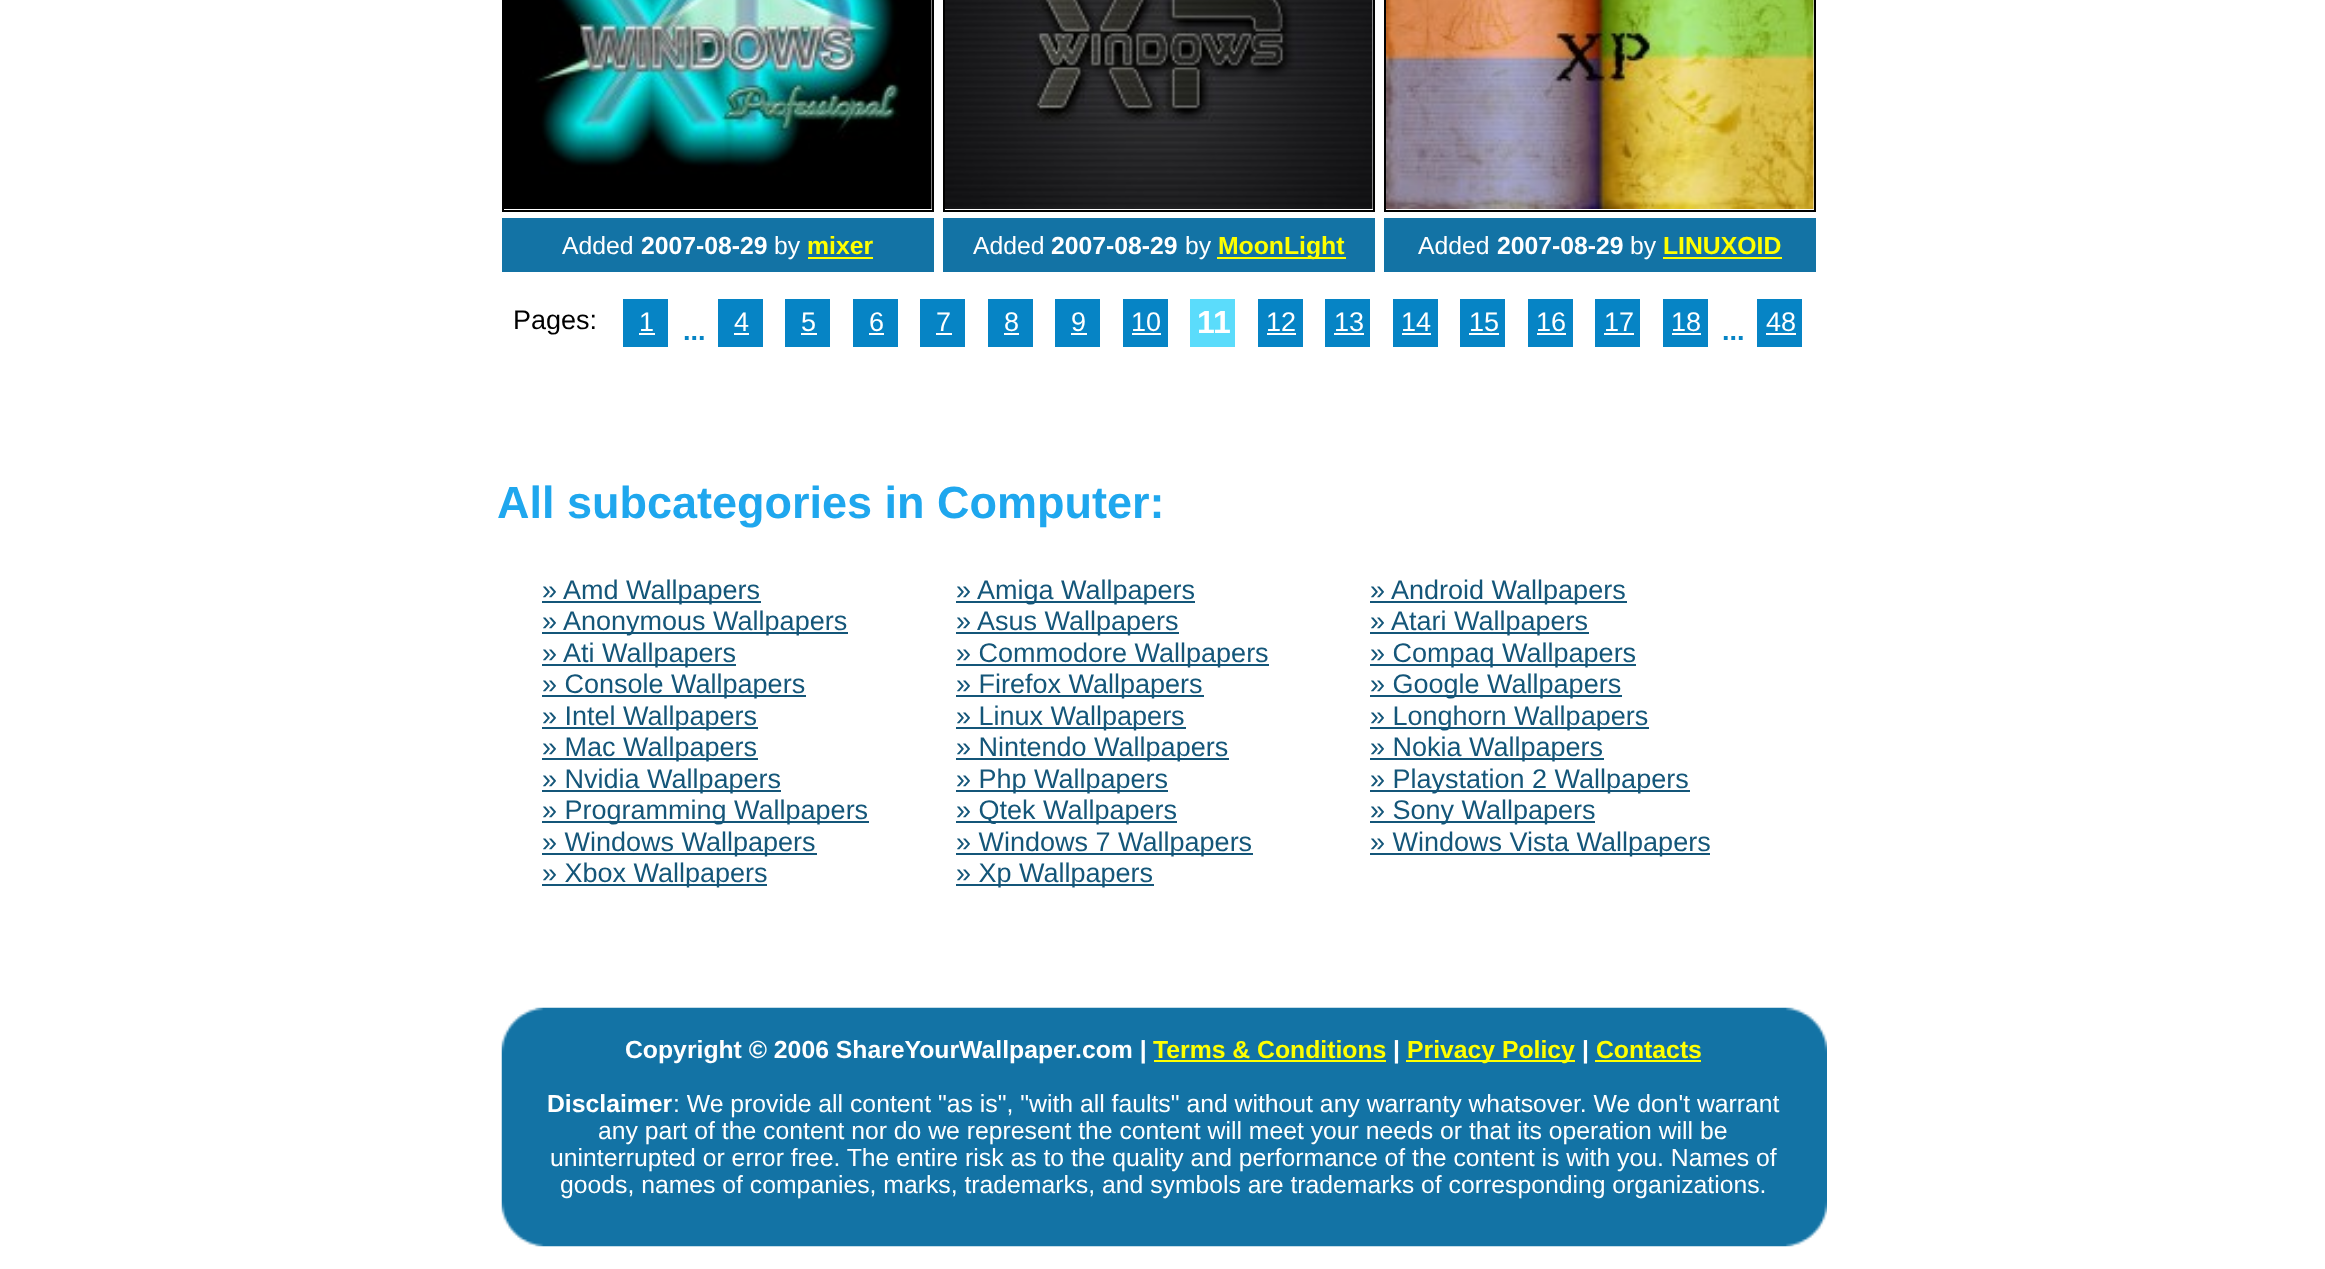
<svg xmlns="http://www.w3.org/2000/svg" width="2325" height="1269">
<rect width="100%" height="100%" fill="#fff"/>
<rect x="503" y="-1" width="430" height="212" fill="none" stroke="#000" stroke-width="2"/>
<image x="504" y="0" width="428" height="209" href="media/1.png"/>
<rect x="502" y="218" width="432" height="54" fill="#1373a5"/>
<text x="562" y="254" style="font-family:Liberation Sans;font-size:24.75px;fill:#fff">Added</text>
<text x="641" y="254" style="font-family:Liberation Sans;font-size:24.75px;font-weight:bold;fill:#fff">2007-08-29</text>
<text x="774" y="254" style="font-family:Liberation Sans;font-size:24.75px;fill:#fff">by</text>
<text x="807" y="254" style="font-family:Liberation Sans;font-size:24.75px;font-weight:bold;fill:#ff0">mixer</text>
<rect x="808" y="257" width="65" height="2" fill="#ff0"/>
<rect x="944" y="-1" width="430" height="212" fill="none" stroke="#000" stroke-width="2"/>
<image x="945" y="0" width="428" height="209" href="media/2.png"/>
<rect x="943" y="218" width="432" height="54" fill="#1373a5"/>
<text x="973" y="254" style="font-family:Liberation Sans;font-size:24.75px;fill:#fff">Added</text>
<text x="1051" y="254" style="font-family:Liberation Sans;font-size:24.75px;font-weight:bold;fill:#fff">2007-08-29</text>
<text x="1185" y="254" style="font-family:Liberation Sans;font-size:24.75px;fill:#fff">by</text>
<rect x="1217" y="257" width="129" height="2" fill="#ff0"/>
<text x="1218" y="254" style="font-family:Liberation Sans;font-size:24.75px;font-weight:bold;fill:#ff0">MoonLight</text>
<rect x="1385" y="-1" width="430" height="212" fill="none" stroke="#000" stroke-width="2"/>
<image x="1386" y="0" width="428" height="209" href="media/3.png"/>
<rect x="1384" y="218" width="432" height="54" fill="#1373a5"/>
<text x="1418" y="254" style="font-family:Liberation Sans;font-size:24.75px;fill:#fff">Added</text>
<text x="1497" y="254" style="font-family:Liberation Sans;font-size:24.75px;font-weight:bold;fill:#fff">2007-08-29</text>
<text x="1630" y="254" style="font-family:Liberation Sans;font-size:24.75px;fill:#fff">by</text>
<text x="1663" y="254" style="font-family:Liberation Sans;font-size:24.75px;font-weight:bold;fill:#ff0">LINUXOID</text>
<rect x="1663" y="257" width="119" height="2" fill="#ff0"/>
<text x="513" y="329" style="font-family:Liberation Sans;font-size:27px;fill:#000">Pages:</text>
<rect x="623" y="299" width="45" height="48" fill="#0684c5"/>
<text x="639" y="331" style="font-family:Liberation Sans;font-size:27px;fill:#fff">1</text>
<rect x="639" y="333" width="16" height="2" fill="#fff"/>
<rect x="718" y="299" width="45" height="48" fill="#0684c5"/>
<text x="734" y="331" style="font-family:Liberation Sans;font-size:27px;fill:#fff">4</text>
<rect x="734" y="333" width="15" height="2" fill="#fff"/>
<rect x="785" y="299" width="45" height="48" fill="#0684c5"/>
<text x="801" y="331" style="font-family:Liberation Sans;font-size:27px;fill:#fff">5</text>
<rect x="801" y="333" width="16" height="2" fill="#fff"/>
<rect x="853" y="299" width="45" height="48" fill="#0684c5"/>
<text x="869" y="331" style="font-family:Liberation Sans;font-size:27px;fill:#fff">6</text>
<rect x="869" y="333" width="15" height="2" fill="#fff"/>
<rect x="920" y="299" width="45" height="48" fill="#0684c5"/>
<text x="936" y="331" style="font-family:Liberation Sans;font-size:27px;fill:#fff">7</text>
<rect x="936" y="333" width="16" height="2" fill="#fff"/>
<rect x="988" y="299" width="45" height="48" fill="#0684c5"/>
<text x="1004" y="331" style="font-family:Liberation Sans;font-size:27px;fill:#fff">8</text>
<rect x="1004" y="333" width="15" height="2" fill="#fff"/>
<rect x="1055" y="299" width="45" height="48" fill="#0684c5"/>
<text x="1071" y="331" style="font-family:Liberation Sans;font-size:27px;fill:#fff">9</text>
<rect x="1071" y="333" width="16" height="2" fill="#fff"/>
<rect x="1123" y="299" width="45" height="48" fill="#0684c5"/>
<text x="1131" y="331" style="font-family:Liberation Sans;font-size:27px;fill:#fff">10</text>
<rect x="1132" y="333" width="29" height="2" fill="#fff"/>
<rect x="1190" y="299" width="45" height="48" fill="#5bdcfb"/>
<text x="1197" y="333" style="font-family:Liberation Sans;font-size:32px;font-weight:bold;fill:#fff">11</text>
<rect x="1258" y="299" width="45" height="48" fill="#0684c5"/>
<text x="1266" y="331" style="font-family:Liberation Sans;font-size:27px;fill:#fff">12</text>
<rect x="1267" y="333" width="29" height="2" fill="#fff"/>
<rect x="1325" y="299" width="45" height="48" fill="#0684c5"/>
<text x="1334" y="331" style="font-family:Liberation Sans;font-size:27px;fill:#fff">13</text>
<rect x="1334" y="333" width="30" height="2" fill="#fff"/>
<rect x="1393" y="299" width="45" height="48" fill="#0684c5"/>
<text x="1401" y="331" style="font-family:Liberation Sans;font-size:27px;fill:#fff">14</text>
<rect x="1402" y="333" width="29" height="2" fill="#fff"/>
<rect x="1460" y="299" width="45" height="48" fill="#0684c5"/>
<text x="1469" y="331" style="font-family:Liberation Sans;font-size:27px;fill:#fff">15</text>
<rect x="1469" y="333" width="30" height="2" fill="#fff"/>
<rect x="1528" y="299" width="45" height="48" fill="#0684c5"/>
<text x="1536" y="331" style="font-family:Liberation Sans;font-size:27px;fill:#fff">16</text>
<rect x="1537" y="333" width="29" height="2" fill="#fff"/>
<rect x="1595" y="299" width="45" height="48" fill="#0684c5"/>
<text x="1604" y="331" style="font-family:Liberation Sans;font-size:27px;fill:#fff">17</text>
<rect x="1604" y="333" width="30" height="2" fill="#fff"/>
<rect x="1663" y="299" width="45" height="48" fill="#0684c5"/>
<text x="1671" y="331" style="font-family:Liberation Sans;font-size:27px;fill:#fff">18</text>
<rect x="1672" y="333" width="29" height="2" fill="#fff"/>
<rect x="1757" y="299" width="45" height="48" fill="#0684c5"/>
<text x="1766" y="331" style="font-family:Liberation Sans;font-size:27px;fill:#fff">48</text>
<rect x="1766" y="333" width="30" height="2" fill="#fff"/>
<text x="683" y="340" style="font-family:Liberation Sans;font-size:27px;font-weight:bold;fill:#0684c5">...</text>
<text x="1722" y="340" style="font-family:Liberation Sans;font-size:27px;font-weight:bold;fill:#0684c5">...</text>
<text x="497" y="518" style="font-family:Liberation Sans;font-size:45px;font-weight:bold;fill:#1fa7ee">All subcategories in Computer:</text>
<rect x="542" y="601" width="219" height="2" fill="#145679"/>
<text x="542" y="599" style="font-family:Liberation Sans;font-size:27px;fill:#145679">» Amd Wallpapers</text>
<rect x="956" y="601" width="239" height="2" fill="#145679"/>
<text x="956" y="599" style="font-family:Liberation Sans;font-size:27px;fill:#145679">» Amiga Wallpapers</text>
<rect x="1370" y="601" width="257" height="2" fill="#145679"/>
<text x="1370" y="599" style="font-family:Liberation Sans;font-size:27px;fill:#145679">» Android Wallpapers</text>
<rect x="542" y="632" width="306" height="2" fill="#145679"/>
<text x="542" y="630" style="font-family:Liberation Sans;font-size:27px;fill:#145679">» Anonymous Wallpapers</text>
<rect x="956" y="632" width="223" height="2" fill="#145679"/>
<text x="956" y="630" style="font-family:Liberation Sans;font-size:27px;fill:#145679">» Asus Wallpapers</text>
<rect x="1370" y="632" width="219" height="2" fill="#145679"/>
<text x="1370" y="630" style="font-family:Liberation Sans;font-size:27px;fill:#145679">» Atari Wallpapers</text>
<rect x="542" y="664" width="194" height="2" fill="#145679"/>
<text x="542" y="662" style="font-family:Liberation Sans;font-size:27px;fill:#145679">» Ati Wallpapers</text>
<rect x="956" y="664" width="313" height="2" fill="#145679"/>
<text x="956" y="662" style="font-family:Liberation Sans;font-size:27px;fill:#145679">» Commodore Wallpapers</text>
<rect x="1370" y="664" width="266" height="2" fill="#145679"/>
<text x="1370" y="662" style="font-family:Liberation Sans;font-size:27px;fill:#145679">» Compaq Wallpapers</text>
<rect x="542" y="695" width="264" height="2" fill="#145679"/>
<text x="542" y="693" style="font-family:Liberation Sans;font-size:27px;fill:#145679">» Console Wallpapers</text>
<rect x="956" y="695" width="248" height="2" fill="#145679"/>
<text x="956" y="693" style="font-family:Liberation Sans;font-size:27px;fill:#145679">» Firefox Wallpapers</text>
<rect x="1370" y="695" width="252" height="2" fill="#145679"/>
<text x="1370" y="693" style="font-family:Liberation Sans;font-size:27px;fill:#145679">» Google Wallpapers</text>
<rect x="542" y="727" width="216" height="2" fill="#145679"/>
<text x="542" y="725" style="font-family:Liberation Sans;font-size:27px;fill:#145679">» Intel Wallpapers</text>
<rect x="956" y="727" width="230" height="2" fill="#145679"/>
<text x="956" y="725" style="font-family:Liberation Sans;font-size:27px;fill:#145679">» Linux Wallpapers</text>
<rect x="1370" y="727" width="279" height="2" fill="#145679"/>
<text x="1370" y="725" style="font-family:Liberation Sans;font-size:27px;fill:#145679">» Longhorn Wallpapers</text>
<rect x="542" y="758" width="216" height="2" fill="#145679"/>
<text x="542" y="756" style="font-family:Liberation Sans;font-size:27px;fill:#145679">» Mac Wallpapers</text>
<rect x="956" y="758" width="273" height="2" fill="#145679"/>
<text x="956" y="756" style="font-family:Liberation Sans;font-size:27px;fill:#145679">» Nintendo Wallpapers</text>
<rect x="1370" y="758" width="234" height="2" fill="#145679"/>
<text x="1370" y="756" style="font-family:Liberation Sans;font-size:27px;fill:#145679">» Nokia Wallpapers</text>
<rect x="542" y="790" width="239" height="2" fill="#145679"/>
<text x="542" y="788" style="font-family:Liberation Sans;font-size:27px;fill:#145679">» Nvidia Wallpapers</text>
<rect x="956" y="790" width="212" height="2" fill="#145679"/>
<text x="956" y="788" style="font-family:Liberation Sans;font-size:27px;fill:#145679">» Php Wallpapers</text>
<rect x="1370" y="790" width="320" height="2" fill="#145679"/>
<text x="1370" y="788" style="font-family:Liberation Sans;font-size:27px;fill:#145679">» Playstation 2 Wallpapers</text>
<rect x="542" y="821" width="327" height="2" fill="#145679"/>
<text x="542" y="819" style="font-family:Liberation Sans;font-size:27px;fill:#145679">» Programming Wallpapers</text>
<rect x="956" y="821" width="221" height="2" fill="#145679"/>
<text x="956" y="819" style="font-family:Liberation Sans;font-size:27px;fill:#145679">» Qtek Wallpapers</text>
<rect x="1370" y="821" width="225" height="2" fill="#145679"/>
<text x="1370" y="819" style="font-family:Liberation Sans;font-size:27px;fill:#145679">» Sony Wallpapers</text>
<rect x="542" y="853" width="275" height="2" fill="#145679"/>
<text x="542" y="851" style="font-family:Liberation Sans;font-size:27px;fill:#145679">» Windows Wallpapers</text>
<rect x="956" y="853" width="297" height="2" fill="#145679"/>
<text x="956" y="851" style="font-family:Liberation Sans;font-size:27px;fill:#145679">» Windows 7 Wallpapers</text>
<rect x="1370" y="853" width="340" height="2" fill="#145679"/>
<text x="1370" y="851" style="font-family:Liberation Sans;font-size:27px;fill:#145679">» Windows Vista Wallpapers</text>
<rect x="542" y="884" width="225" height="2" fill="#145679"/>
<text x="542" y="882" style="font-family:Liberation Sans;font-size:27px;fill:#145679">» Xbox Wallpapers</text>
<rect x="956" y="884" width="198" height="2" fill="#145679"/>
<text x="956" y="882" style="font-family:Liberation Sans;font-size:27px;fill:#145679">» Xp Wallpapers</text>
<image x="501" y="1007" width="1326" height="240" href="media/4.png"/>
<text x="625" y="1058" style="font-family:Liberation Sans;font-size:24.75px;font-weight:bold;fill:#fff">Copyright © 2006 ShareYourWallpaper.com |</text>
<text x="1153" y="1058" style="font-family:Liberation Sans;font-size:24.75px;font-weight:bold;fill:#ff0">Terms &amp; Conditions</text>
<rect x="1154" y="1060" width="232" height="2" fill="#ff0"/>
<text x="1393" y="1058" style="font-family:Liberation Sans;font-size:24.75px;font-weight:bold;fill:#fff">|</text>
<rect x="1406" y="1060" width="169" height="2" fill="#ff0"/>
<text x="1407" y="1058" style="font-family:Liberation Sans;font-size:24.75px;font-weight:bold;fill:#ff0">Privacy Policy</text>
<text x="1582" y="1058" style="font-family:Liberation Sans;font-size:24.75px;font-weight:bold;fill:#fff">|</text>
<text x="1596" y="1058" style="font-family:Liberation Sans;font-size:24.75px;font-weight:bold;fill:#ff0">Contacts</text>
<rect x="1595" y="1060" width="106" height="2" fill="#ff0"/>
<text x="547" y="1112" style="font-family:Liberation Sans;font-size:24.75px;font-weight:bold;fill:#fff">Disclaimer</text>
<text x="673" y="1112" style="font-family:Liberation Sans;font-size:24.75px;fill:#fff">: We provide all content "as is", "with all faults" and without any warranty whatsover. We don't warrant</text>
<text x="598" y="1139" style="font-family:Liberation Sans;font-size:24.75px;fill:#fff">any part of the content nor do we represent the content will meet your needs or that its operation will be</text>
<text x="550" y="1166" style="font-family:Liberation Sans;font-size:24.75px;fill:#fff">uninterrupted or error free. The entire risk as to the quality and performance of the content is with you. Names of</text>
<text x="560" y="1193" style="font-family:Liberation Sans;font-size:24.75px;fill:#fff">goods, names of companies, marks, trademarks, and symbols are trademarks of corresponding organizations.</text>
</svg>
